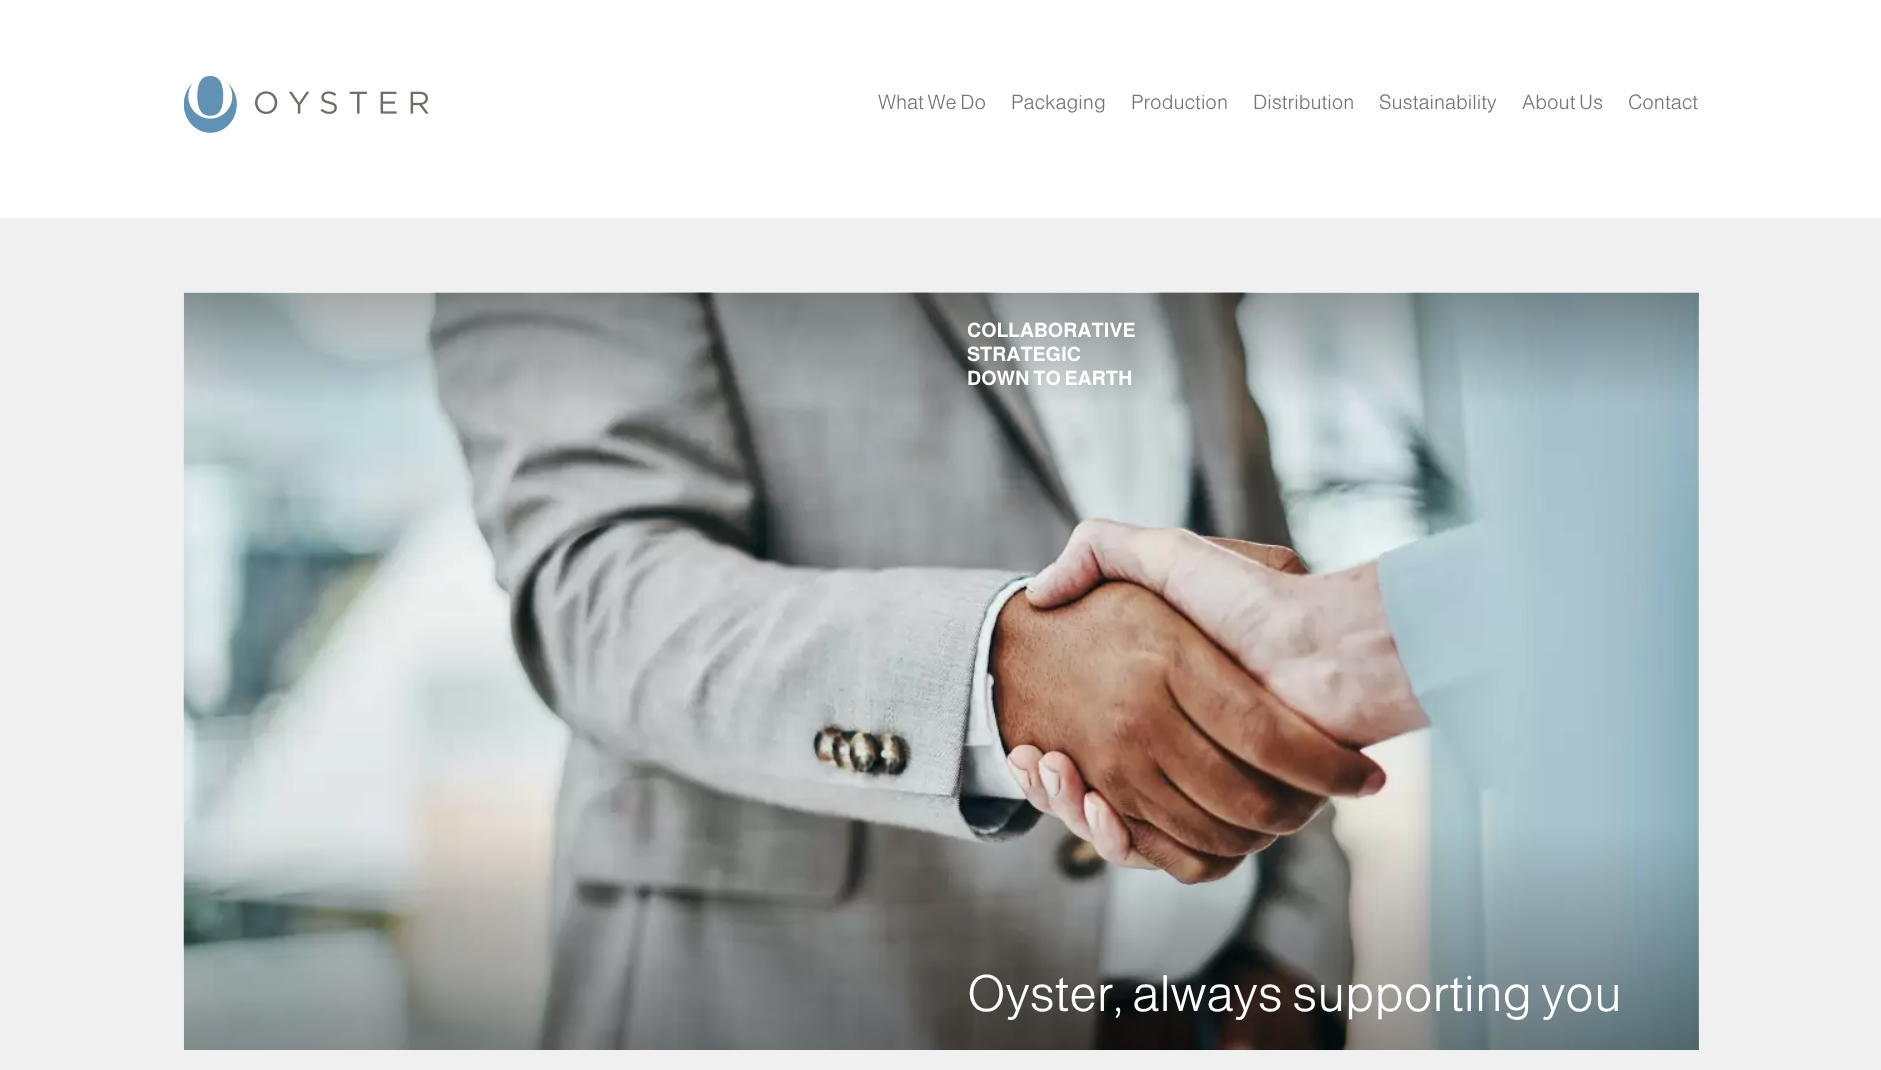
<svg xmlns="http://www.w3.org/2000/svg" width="1881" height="1070">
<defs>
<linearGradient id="g1" gradientUnits="userSpaceOnUse" x1="941" y1="292" x2="941" y2="1050"><stop offset="0" stop-color="#000" stop-opacity="0.3"/><stop offset="0.15" stop-color="#000" stop-opacity="0"/><stop offset="0.7" stop-color="#000" stop-opacity="0"/><stop offset="1" stop-color="#000" stop-opacity="0.4"/></linearGradient>
</defs>
<rect width="100%" height="100%" fill="#fff"/>
<image x="184" y="75" width="245" height="58" href="media/1.png"/>
<text x="878" y="109" style="font-family:Almarai;font-size:20px;font-weight:300;fill:#767676">What We Do</text>
<text x="1011" y="109" style="font-family:Almarai;font-size:20px;font-weight:300;fill:#767676">Packaging</text>
<text x="1131" y="109" style="font-family:Almarai;font-size:20px;font-weight:300;fill:#767676">Production</text>
<text x="1253" y="109" style="font-family:Almarai;font-size:20px;font-weight:300;fill:#767676">Distribution</text>
<text x="1379" y="109" style="font-family:Almarai;font-size:20px;font-weight:300;fill:#767676">Sustainability</text>
<text x="1522" y="109" style="font-family:Almarai;font-size:20px;font-weight:300;fill:#767676">About Us</text>
<text x="1628" y="109" style="font-family:Almarai;font-size:20px;font-weight:300;fill:#767676">Contact</text>
<rect y="218" width="1881" height="852" fill="#f0f0f0"/>
<image x="183" y="292" width="1516" height="758" href="media/2.png"/>
<rect x="184" y="293" width="1515" height="757" fill="url(#g1)"/>
<text x="967" y="337" style="font-family:Almarai;font-size:20px;font-weight:bold;fill:#fff">COLLABORATIVE</text>
<text x="967" y="361" style="font-family:Almarai;font-size:20px;font-weight:bold;fill:#fff">STRATEGIC</text>
<text x="967" y="385" style="font-family:Almarai;font-size:20px;font-weight:bold;fill:#fff">DOWN TO EARTH</text>
<text x="967" y="1011" style="font-family:Almarai;font-size:50px;font-weight:300;fill:#fff">Oyster, always supporting you</text>
</svg>
